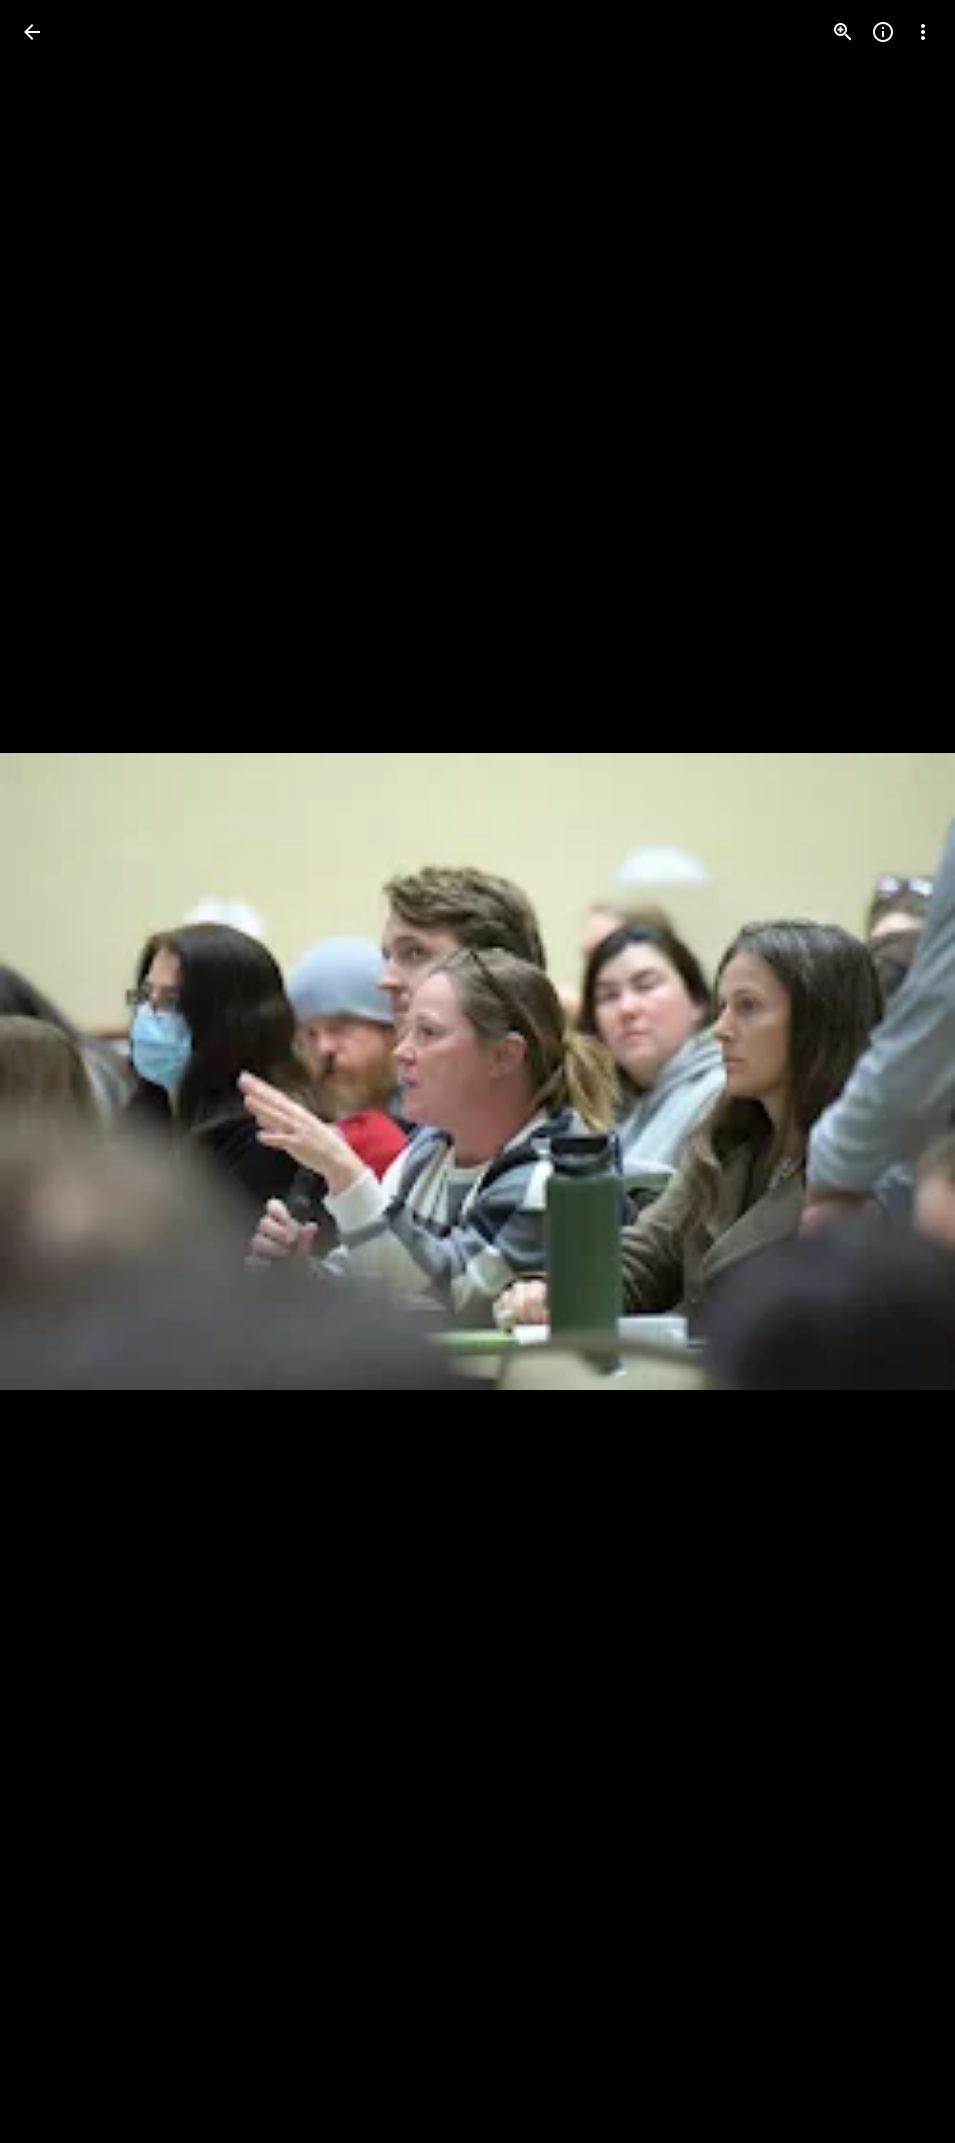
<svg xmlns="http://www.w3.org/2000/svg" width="955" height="2143">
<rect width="100%" height="100%" fill="#000"/>
<image x="24" y="24" width="16" height="16" href="media/1.png"/>
<image x="834" y="23" width="18" height="18" href="media/2.png"/>
<image x="873" y="22" width="20" height="20" href="media/3.png"/>
<image x="921" y="24" width="4" height="16" href="media/4.png"/>
<image x="0" y="753" width="955" height="637" href="media/5.png"/>
</svg>
